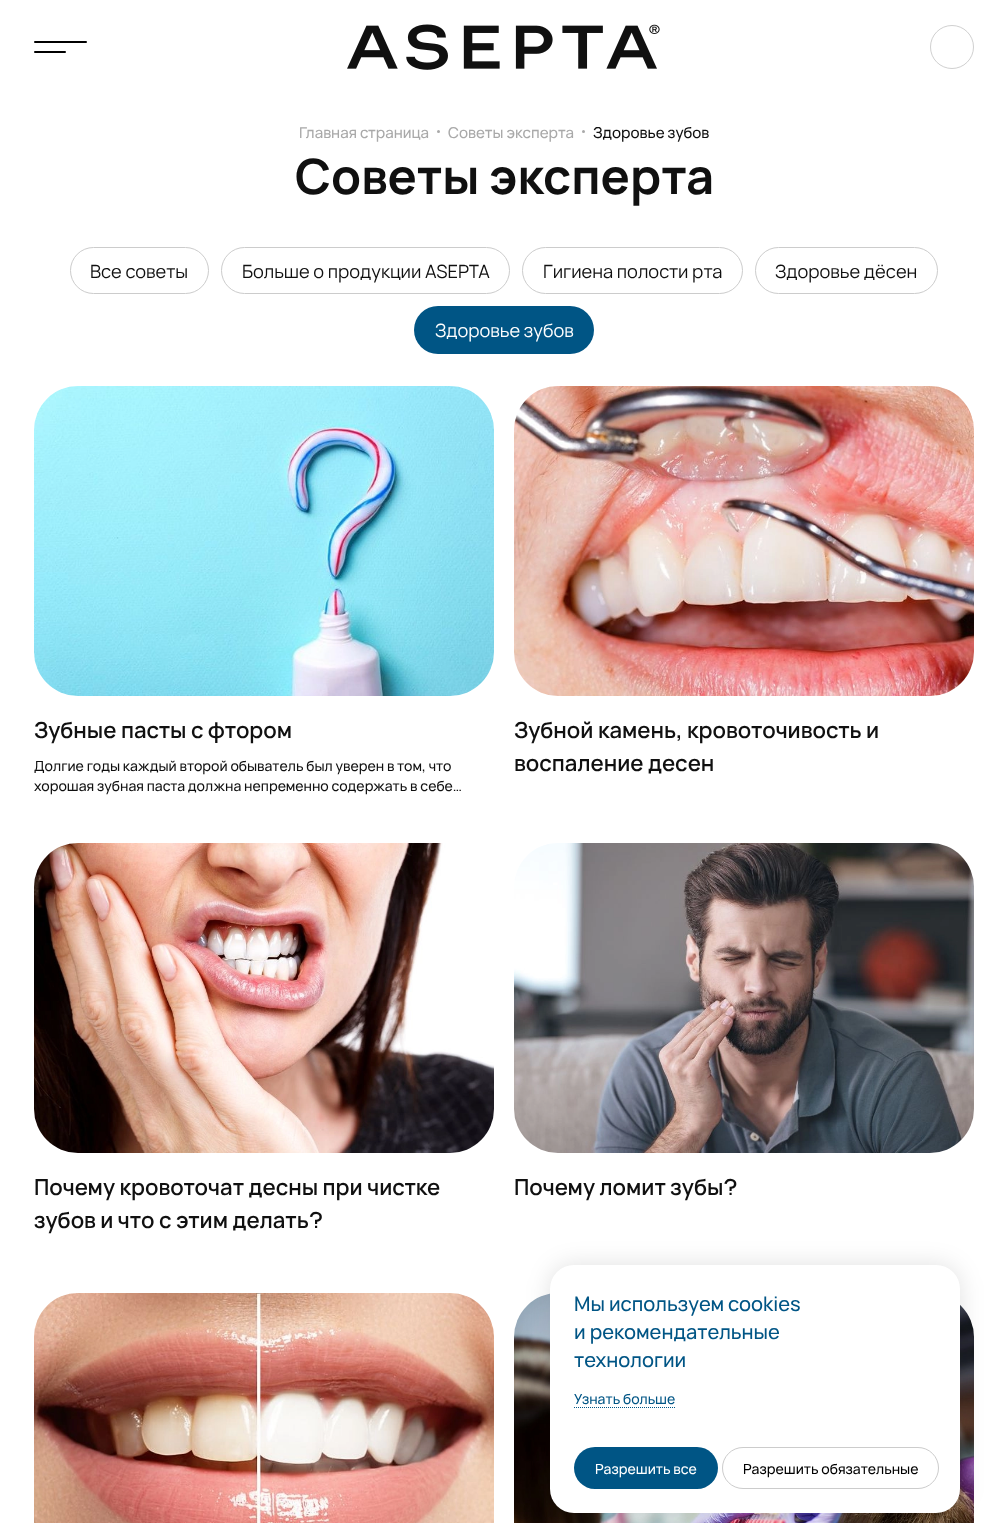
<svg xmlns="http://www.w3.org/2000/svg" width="1008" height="1523">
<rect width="100%" height="100%" fill="#fff"/>
<rect x="34" y="41" width="53" height="2" rx="1" fill="#000"/>
<rect x="34" y="51" width="32" height="2" rx="1" fill="#000"/>
<image x="347" y="24" width="313" height="46" href="media/1.png"/>
<circle cx="952" cy="47" r="21.5" fill="none" stroke="#d0d0d0"/>
<text x="299" y="138" style="font-family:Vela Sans;font-size:15.1px;font-weight:500;fill:#a9a9a9">Главная страница</text>
<circle cx="438.5" cy="131.5" r="1.5" fill="#a9a9a9"/>
<text x="448" y="138" style="font-family:Vela Sans;font-size:15.1px;font-weight:500;fill:#a9a9a9">Советы эксперта</text>
<circle cx="583.5" cy="131.5" r="1.5" fill="#a9a9a9"/>
<text x="593" y="138" style="font-family:Vela Sans;font-size:15.1px;font-weight:500;fill:#101010">Здоровье зубов</text>
<text x="295" y="194" style="font-family:Vela Sans;font-size:48.75px;font-weight:bold;fill:#101010">Советы эксперта</text>
<rect x="70.5" y="247.5" width="138" height="46" rx="23" fill="none" stroke="#ccc"/>
<text x="90" y="278" style="font-family:Vela Sans;font-size:18.25px;fill:#101010">Все советы</text>
<rect x="221.5" y="247.5" width="288" height="46" rx="23" fill="none" stroke="#ccc"/>
<text x="242" y="278" style="font-family:Vela Sans;font-size:18.25px;fill:#101010">Больше о продукции ASEPTA</text>
<rect x="522.5" y="247.5" width="220" height="46" rx="23" fill="none" stroke="#ccc"/>
<text x="543" y="278" style="font-family:Vela Sans;font-size:18.25px;fill:#101010">Гигиена полости рта</text>
<rect x="755.5" y="247.5" width="182" height="46" rx="23" fill="none" stroke="#ccc"/>
<text x="775" y="278" style="font-family:Vela Sans;font-size:18.25px;fill:#101010">Здоровье дёсен</text>
<rect x="414" y="306" width="180" height="48" rx="24" fill="#005585"/>
<text x="435" y="337" style="font-family:Vela Sans;font-size:18.25px;fill:#fff">Здоровье зубов</text>
<image x="34" y="386" width="460" height="310" href="media/2.png"/>
<text x="34" y="738" style="font-family:Vela Sans;font-size:22.1px;font-weight:600;fill:#101010">Зубные пасты с фтором</text>
<text x="34" y="771" style="font-family:Vela Sans;font-size:14px;font-weight:500;fill:#101010">Долгие годы каждый второй обыватель был уверен в том, что</text>
<text x="34" y="791" style="font-family:Vela Sans;font-size:14px;font-weight:500;fill:#101010">хорошая зубная паста должна непременно содержать в себе…</text>
<image x="514" y="386" width="460" height="310" href="media/3.png"/>
<text x="514" y="738" style="font-family:Vela Sans;font-size:22.1px;font-weight:600;fill:#101010">Зубной камень, кровоточивость и</text>
<text x="514" y="771" style="font-family:Vela Sans;font-size:22.1px;font-weight:600;fill:#101010">воспаление десен</text>
<image x="34" y="843" width="460" height="310" href="media/4.png"/>
<text x="34" y="1195" style="font-family:Vela Sans;font-size:22.1px;font-weight:600;fill:#101010">Почему кровоточат десны при чистке</text>
<text x="34" y="1228" style="font-family:Vela Sans;font-size:22.1px;font-weight:600;fill:#101010">зубов и что с этим делать?</text>
<image x="514" y="843" width="460" height="310" href="media/5.png"/>
<text x="514" y="1195" style="font-family:Vela Sans;font-size:22.1px;font-weight:600;fill:#101010">Почему ломит зубы?</text>
<image x="34" y="1293" width="460" height="230" href="media/6.png"/>
<image x="514" y="1293" width="460" height="230" href="media/7.png"/>
<rect x="550" y="1265" width="410" height="248" rx="24" fill="#0000001f" filter="blur(12.5px)"/>
<rect x="550" y="1265" width="410" height="248" rx="24" fill="#fff"/>
<text x="574" y="1311" style="font-family:Vela Sans;font-size:20px;font-weight:500;fill:#005585">Мы используем cookies</text>
<text x="574" y="1339" style="font-family:Vela Sans;font-size:20px;font-weight:500;fill:#005585">и рекомендательные</text>
<text x="574" y="1367" style="font-family:Vela Sans;font-size:20px;font-weight:500;fill:#005585">технологии</text>
<text x="574" y="1404" style="font-family:Vela Sans;font-size:14px;font-weight:500;fill:#005585">Узнать больше</text>
<path d="M574 1407.5h101.5" fill="none" stroke="#005585" stroke-dasharray="1 1"/>
<rect x="574" y="1447" width="144" height="42" rx="21" fill="#005585"/>
<text x="595" y="1474" style="font-family:Vela Sans;font-size:14px;font-weight:500;fill:#fff">Разрешить все</text>
<rect x="722.5" y="1447.5" width="216" height="41" rx="20.5" fill="none" stroke="#ccc"/>
<text x="743" y="1474" style="font-family:Vela Sans;font-size:14px;font-weight:500;fill:#000">Разрешить обязательные</text>
</svg>
